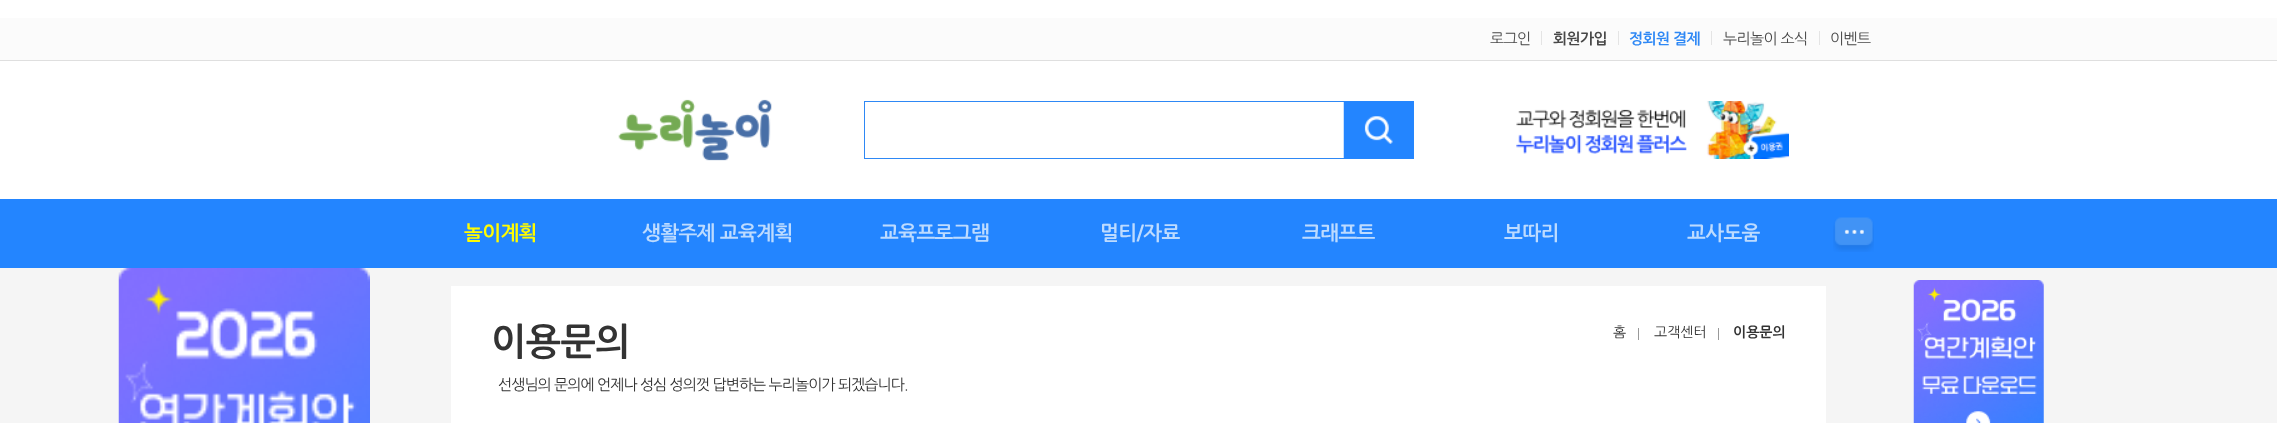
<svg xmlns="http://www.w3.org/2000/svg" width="2277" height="423">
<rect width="100%" height="100%" fill="#fff"/>
<rect y="18" width="2277" height="42" fill="#fbfbfb"/>
<rect y="60" width="2277" height="1" fill="#dfdfdf"/>
<text x="1490" y="44" style="font-family:NanumGothic;font-size:15px;letter-spacing:-0.6px;fill:#484848">로그인</text>
<rect x="1541" y="31" width="1" height="14" fill="#e4e4e4"/>
<text x="1553" y="44" style="font-family:NanumGothic;font-size:15px;font-weight:bold;letter-spacing:-0.6px;fill:#484848">회원가입</text>
<rect x="1618" y="31" width="1" height="14" fill="#e4e4e4"/>
<text x="1629" y="44" style="font-family:NanumGothic;font-size:15px;font-weight:bold;letter-spacing:-0.6px;fill:#2e88f5">정회원 결제</text>
<rect x="1711" y="31" width="1" height="14" fill="#e4e4e4"/>
<text x="1723" y="44" style="font-family:NanumGothic;font-size:15px;letter-spacing:-0.6px;fill:#484848">누리놀이 소식</text>
<rect x="1819" y="31" width="1" height="14" fill="#e4e4e4"/>
<text x="1830" y="44" style="font-family:NanumGothic;font-size:15px;letter-spacing:-0.6px;fill:#484848">이벤트</text>
<image x="618" y="99" width="154" height="62" href="media/1.png"/>
<rect x="864.5" y="101.5" width="549" height="57" fill="none" stroke="#2e88f5"/>
<image x="1343" y="101" width="71" height="58" href="media/2.png"/>
<image x="1516" y="101" width="273" height="58" href="media/3.png"/>
<rect y="199" width="2277" height="69" fill="#2385ff"/>
<text x="464" y="240" style="font-family:NanumGothic;font-size:20px;font-weight:bold;letter-spacing:-0.6px;fill:#fffc00">놀이계획</text>
<text x="642" y="240" style="font-family:NanumGothic;font-size:20px;font-weight:bold;letter-spacing:-0.6px;fill:#bddbff">생활주제 교육계획</text>
<text x="880" y="240" style="font-family:NanumGothic;font-size:20px;font-weight:bold;letter-spacing:-0.6px;fill:#bddbff">교육프로그램</text>
<text x="1100" y="240" style="font-family:NanumGothic;font-size:20px;font-weight:bold;letter-spacing:-0.6px;fill:#bddbff">멀티/자료</text>
<text x="1302" y="240" style="font-family:NanumGothic;font-size:20px;font-weight:bold;letter-spacing:-0.6px;fill:#bddbff">크래프트</text>
<text x="1504" y="240" style="font-family:NanumGothic;font-size:20px;font-weight:bold;letter-spacing:-0.6px;fill:#bddbff">보따리</text>
<text x="1687" y="240" style="font-family:NanumGothic;font-size:20px;font-weight:bold;letter-spacing:-0.6px;fill:#bddbff">교사도움</text>
<image x="1833" y="217" width="41" height="35" href="media/4.png"/>
<rect y="268" width="2277" height="155" fill="#f5f5f5"/>
<image x="118" y="268" width="252" height="155" href="media/5.png"/>
<rect x="451" y="286" width="1375" height="137" fill="#fff"/>
<text x="491" y="355" style="font-family:NanumGothic;font-size:37.5px;font-weight:bold;letter-spacing:-0.5px;fill:#333">이용문의</text>
<text x="1613" y="337" style="font-family:NanumGothic;font-size:14px;fill:#333">홈</text>
<rect x="1638" y="328" width="1" height="12" fill="#999"/>
<text x="1654" y="337" style="font-family:NanumGothic;font-size:14px;fill:#333">고객센터</text>
<rect x="1718" y="328" width="1" height="12" fill="#999"/>
<text x="1733" y="337" style="font-family:NanumGothic;font-size:14px;font-weight:bold;fill:#333">이용문의</text>
<text x="498" y="390" style="font-family:NanumGothic;font-size:15px;letter-spacing:-0.9px;fill:#333">선생님의 문의에 언제나 성심 성의껏 답변하는 누리놀이가 되겠습니다.</text>
<image x="1913" y="280" width="131" height="143" href="media/6.png"/>
</svg>
